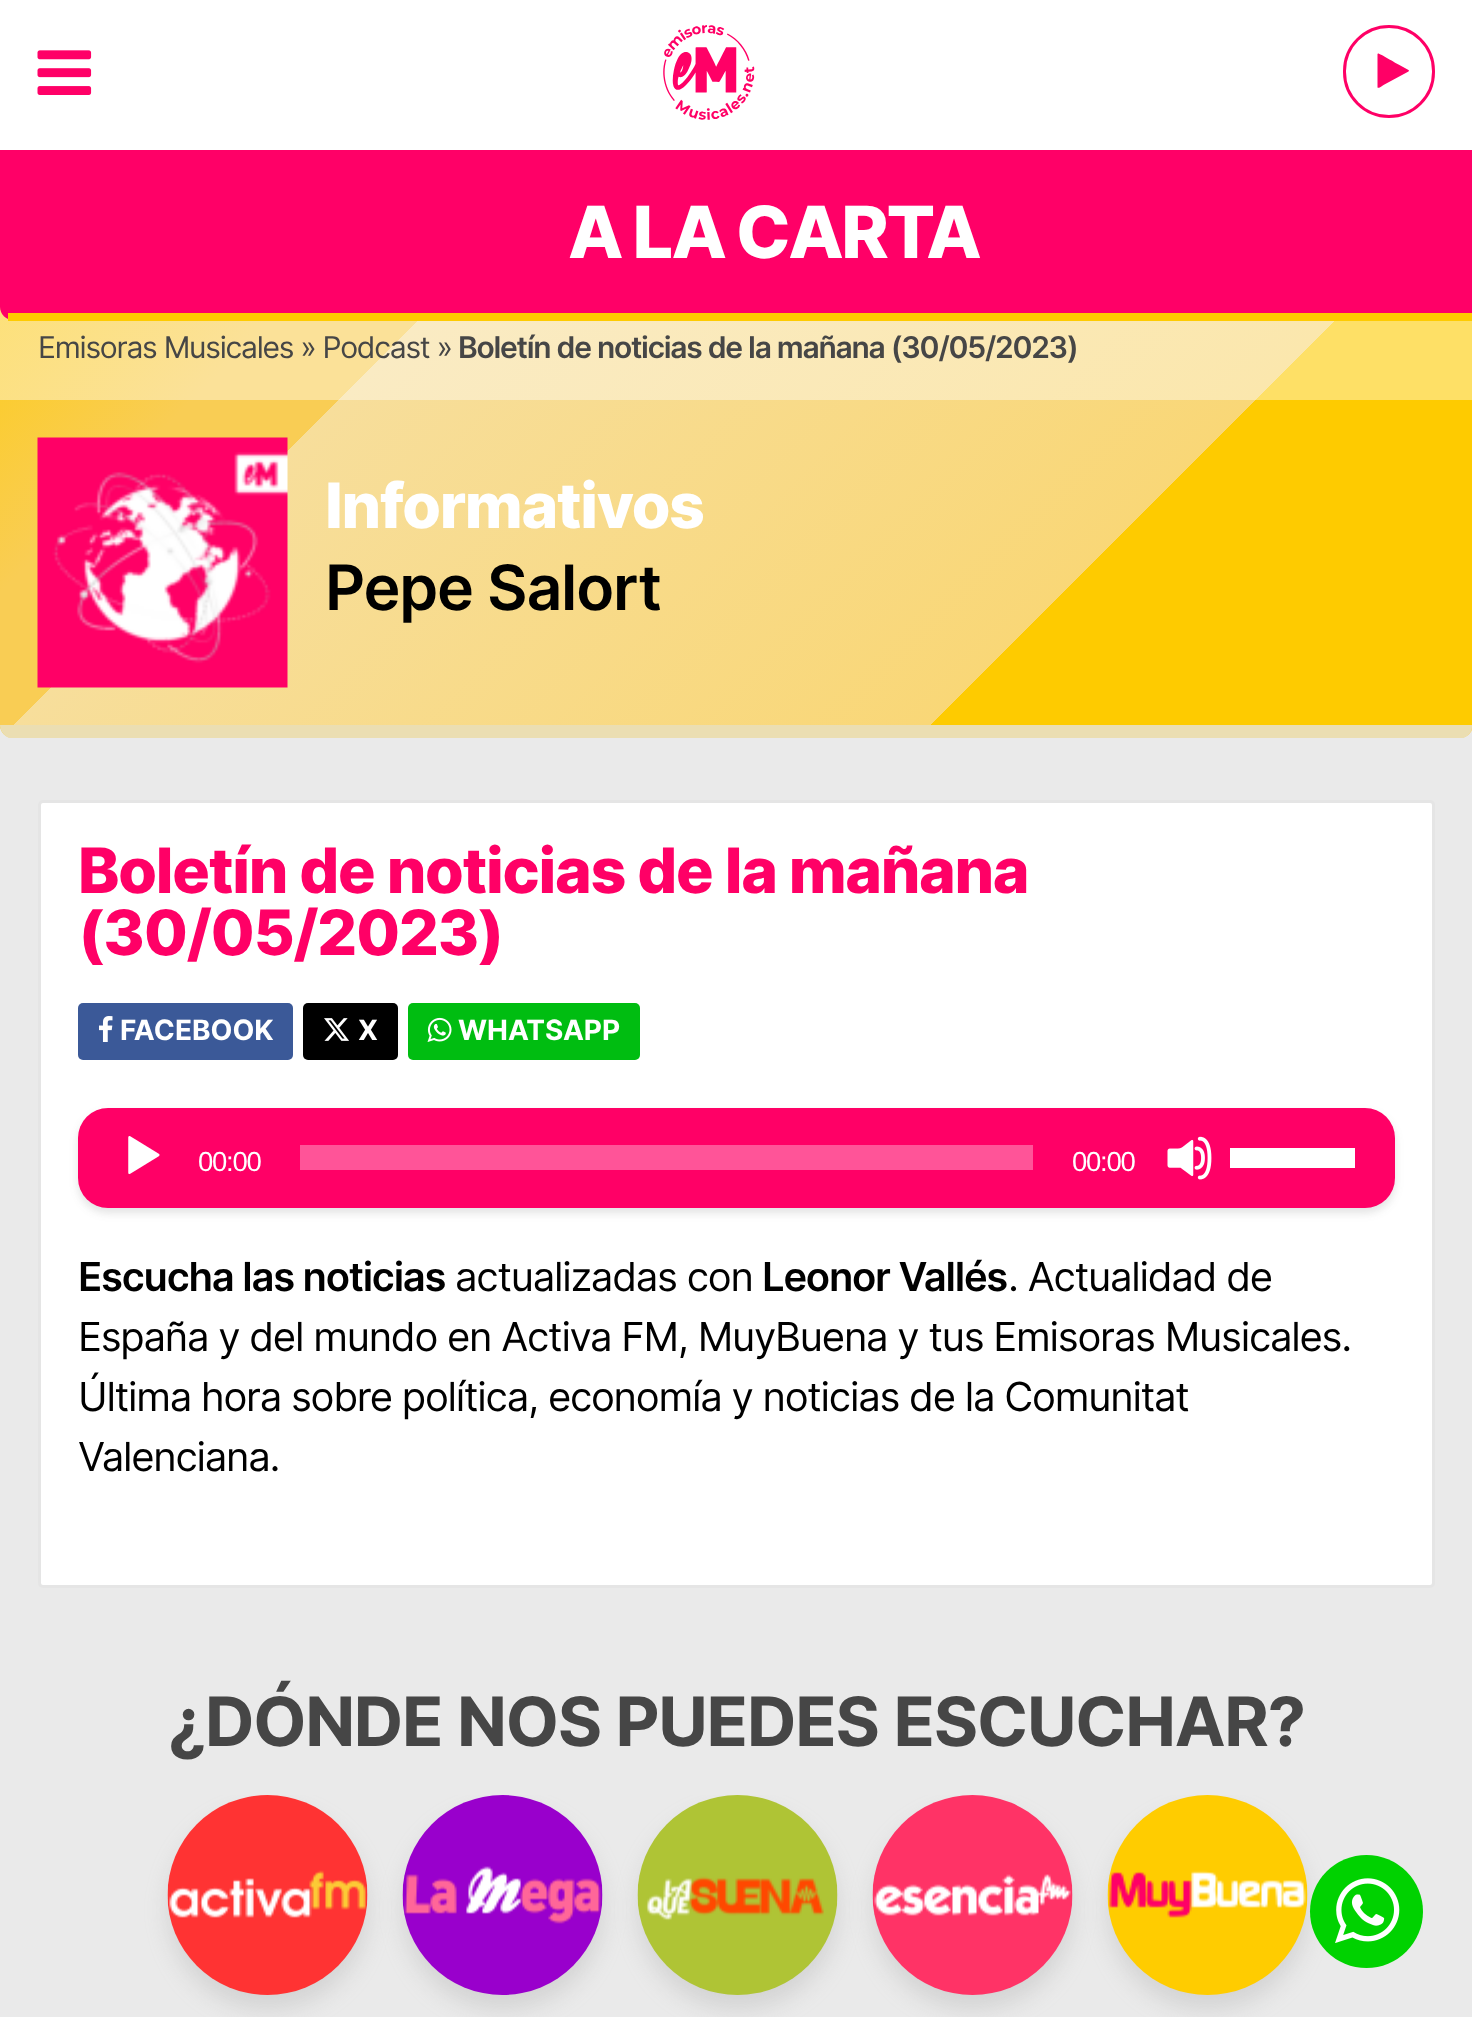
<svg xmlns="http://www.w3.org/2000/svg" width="1472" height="2017">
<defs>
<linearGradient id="g1" gradientUnits="userSpaceOnUse" x1="215" y1="-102" x2="1258" y2="940"><stop offset="0" stop-color="#fee066"/><stop offset="0.23" stop-color="#fbe198"/><stop offset="0.3" stop-color="#fbe198"/><stop offset="0.3" stop-color="#faebc3"/><stop offset="0.74" stop-color="#fbe7ad"/><stop offset="0.74" stop-color="#fee066"/><stop offset="1" stop-color="#fee066"/></linearGradient>
<linearGradient id="g2" gradientUnits="userSpaceOnUse" x1="215" y1="-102" x2="1258" y2="940"><stop offset="0" stop-color="#fecb00"/><stop offset="0.23" stop-color="#f9cd54"/><stop offset="0.3" stop-color="#f9cd54"/><stop offset="0.3" stop-color="#f7de9b"/><stop offset="0.74" stop-color="#f9d777"/><stop offset="0.74" stop-color="#fecb00"/><stop offset="1" stop-color="#fecb00"/></linearGradient>
<linearGradient id="g3" gradientUnits="userSpaceOnUse" x1="215" y1="510" x2="1258" y2="1553"><stop offset="0" stop-color="#fecb00"/><stop offset="0.23" stop-color="#f9cd54"/><stop offset="0.3" stop-color="#f9cd54"/><stop offset="0.3" stop-color="#f7de9b"/><stop offset="0.74" stop-color="#f9d777"/><stop offset="0.74" stop-color="#fecb00"/><stop offset="1" stop-color="#fecb00"/></linearGradient>
<clipPath id="clip1"><rect x="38" y="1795" width="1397" height="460"/></clipPath>
</defs>
<rect width="100%" height="100%" fill="#fff"/>
<image x="37" y="50" width="55" height="45" href="media/1.png"/>
<image x="663" y="25" width="92" height="95" href="media/2.png"/>
<rect x="1344.5" y="26.5" width="89" height="90" rx="44.5" fill="none" stroke="#f06" stroke-width="3"/>
<path d="M1408.5 71.5l-25 13.5c-.5 .5-5 4-6 2.5v-33.5l.5-.5c1-.5 18.5 10 20.5 11l10 5.5l.5 .5z" fill="#f06"/>
<rect y="725" width="1472" height="1292" fill="#eaeaea"/>
<rect y="307" width="1472" height="93" fill="url(#g1)"/>
<path d="M0 150h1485v157c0 7-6 13-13 13h-1459c-7 0-13-6-13-13z" fill="#ff0067"/>
<rect x="8" y="313" width="1464" height="8" fill="#fecb00"/>
<text x="568" y="258" style="font-family:Inter;font-size:72px;font-weight:800;letter-spacing:-2.5px;fill:#fff">A LA CARTA</text>
<rect y="400" width="1472" height="325" fill="url(#g2)"/>
<path d="M0 725h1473c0 7-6 13-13 13h-1447c-7 0-13-6-13-13z" fill="url(#g3)"/>
<path d="M1463 738c6-2 9-7 9-13h-1472c0 6 4 11 9 13z" fill="#ebdeb2"/>
<text x="38" y="358" style="font-family:Inter;font-size:30px;letter-spacing:-1.25px;fill:#464646">Emisoras Musicales » Podcast »</text>
<text x="458" y="358" style="font-family:Inter;font-size:30px;font-weight:600;letter-spacing:-1.25px;fill:#464646">Boletín de noticias de la mañana (30/05/2023)</text>
<image x="37" y="437" width="251" height="251" href="media/3.png"/>
<text x="325" y="528" style="font-family:Inter;font-size:62.5px;font-weight:800;letter-spacing:-1.25px;fill:#fff">Informativos</text>
<text x="325" y="610" style="font-family:Inter;font-size:62.5px;font-weight:600;letter-spacing:-1.25px;fill:#000">Pepe Salort</text>
<rect x="39.5" y="801.5" width="1394" height="785" rx="3.5" fill="#fff" stroke="#e5e5e5" stroke-width="3"/>
<text x="78" y="893" style="font-family:Inter;font-size:62.5px;font-weight:800;letter-spacing:-1.25px;fill:#f06">Boletín de noticias de la mañana</text>
<text x="78" y="955" style="font-family:Inter;font-size:62.5px;font-weight:800;letter-spacing:-1.25px;fill:#f06">(30/05/2023)</text>
<rect x="78" y="1003" width="215" height="57" rx="5" fill="#3b5998"/>
<image x="99" y="1016" width="14" height="26" href="media/4.png"/>
<text x="120" y="1040" style="font-family:Inter;font-size:28px;font-weight:bold;fill:#fff">FACEBOOK</text>
<rect x="303" y="1003" width="95" height="57" rx="5" fill="#000"/>
<image x="324" y="1018" width="25" height="23" href="media/5.png"/>
<text x="358" y="1040" style="font-family:Inter;font-size:28px;font-weight:bold;fill:#fff">X</text>
<rect x="408" y="1003" width="232" height="57" rx="5" fill="#00bd11"/>
<image x="427" y="1017" width="25" height="25" href="media/6.png"/>
<text x="458" y="1040" style="font-family:Inter;font-size:28px;font-weight:bold;fill:#fff">WHATSAPP</text>
<rect x="78" y="1113" width="1317" height="100" rx="30" fill="#41414126" filter="blur(4px)"/>
<rect x="78" y="1108" width="1317" height="100" rx="30" fill="#f06"/>
<image x="128" y="1136" width="32" height="39" href="media/7.png"/>
<text x="198" y="1171" style="font-family:Liberation Sans;font-size:27.5px;letter-spacing:-1.25px;fill:#fff">00:00</text>
<rect x="300" y="1145" width="733" height="25" fill="#ff5498"/>
<text x="1072" y="1171" style="font-family:Liberation Sans;font-size:27.5px;letter-spacing:-1.25px;fill:#fff">00:00</text>
<image x="1167" y="1136" width="45" height="44" href="media/8.png"/>
<rect x="1230" y="1148" width="125" height="20" fill="#fff"/>
<text x="78" y="1291" style="font-family:Inter;font-size:40px;font-weight:600;letter-spacing:-1.25px;fill:#000">Escucha las noticias</text>
<text x="455" y="1291" style="font-family:Inter;font-size:40px;letter-spacing:-1.25px;fill:#000">actualizadas con</text>
<text x="762" y="1291" style="font-family:Inter;font-size:40px;font-weight:600;letter-spacing:-1.25px;fill:#000">Leonor Vallés</text>
<text x="1008" y="1291" style="font-family:Inter;font-size:40px;letter-spacing:-1.25px;fill:#000">. Actualidad de</text>
<text x="78" y="1351" style="font-family:Inter;font-size:40px;letter-spacing:-1.25px;fill:#000">España y del mundo en Activa FM, MuyBuena y tus Emisoras Musicales.</text>
<text x="78" y="1411" style="font-family:Inter;font-size:40px;letter-spacing:-1.25px;fill:#000">Última hora sobre política, economía y noticias de la Comunitat</text>
<text x="78" y="1471" style="font-family:Inter;font-size:40px;letter-spacing:-1.25px;fill:#000">Valenciana.</text>
<text x="168" y="1746" style="font-family:Inter;font-size:68px;font-weight:bold;letter-spacing:-1.25px;fill:#464646">¿DÓNDE NOS PUEDES ESCUCHAR?</text>
<g clip-path="url(#clip1)">
<rect x="168" y="1810" width="200" height="200" rx="100" fill="#a2a2a24d" filter="blur(11px)"/>
</g>
<image x="167" y="1795" width="201" height="200" href="media/9.png"/>
<g clip-path="url(#clip1)">
<rect x="403" y="1810" width="200" height="200" rx="100" fill="#a2a2a24d" filter="blur(11px)"/>
</g>
<image x="402" y="1795" width="201" height="200" href="media/10.png"/>
<g clip-path="url(#clip1)">
<rect x="638" y="1810" width="200" height="200" rx="100" fill="#a2a2a24d" filter="blur(11px)"/>
</g>
<image x="637" y="1795" width="201" height="200" href="media/11.png"/>
<g clip-path="url(#clip1)">
<rect x="873" y="1810" width="200" height="200" rx="100" fill="#a2a2a24d" filter="blur(11px)"/>
</g>
<image x="872" y="1795" width="201" height="200" href="media/12.png"/>
<g clip-path="url(#clip1)">
<rect x="1108" y="1810" width="200" height="200" rx="100" fill="#a2a2a24d" filter="blur(11px)"/>
</g>
<image x="1107" y="1795" width="201" height="200" href="media/13.png"/>
<circle cx="1366.5" cy="1911.5" r="56.5" fill="#00d200"/>
<image x="1335" y="1878" width="65" height="65" href="media/14.png"/>
</svg>
